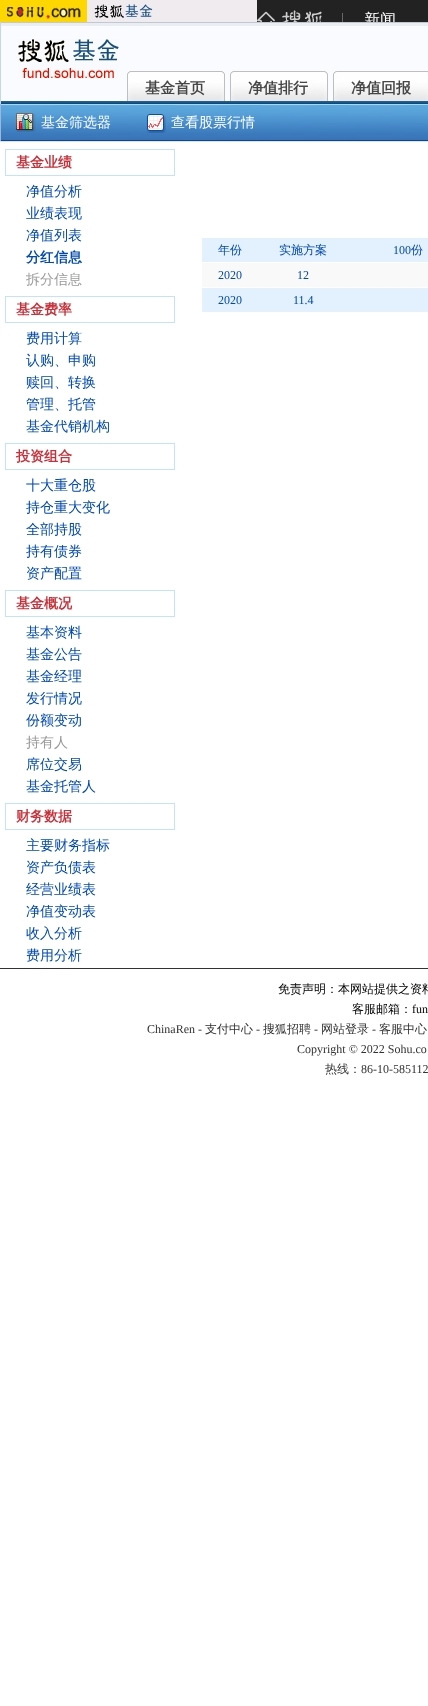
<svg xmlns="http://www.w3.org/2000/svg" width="428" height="1706">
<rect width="100%" height="100%" fill="#fff"/>
<image x="0" y="0" width="428" height="22" href="media/1.png"/>
<rect x="1" y="26" width="427" height="75" fill="#fafbfe"/>
<rect y="23" width="428" height="3" fill="#eaedf2"/>
<rect y="22" width="428" height="1" fill="#c2c7d4"/>
<rect y="22" width="1" height="82" fill="#c8d6e5"/>
<image x="18" y="39" width="101" height="39" href="media/2.png"/>
<image x="127" y="71" width="98" height="30" href="media/3.png"/>
<text x="145" y="93" style="font-family:WenQuanYi Zen Hei;font-size:15px;font-weight:bold;fill:#464646">基金首页</text>
<image x="230" y="71" width="98" height="30" href="media/3.png"/>
<text x="248" y="93" style="font-family:WenQuanYi Zen Hei;font-size:15px;font-weight:bold;fill:#464646">净值排行</text>
<image x="333" y="71" width="95" height="30" href="media/4.png"/>
<text x="351" y="93" style="font-family:WenQuanYi Zen Hei;font-size:15px;font-weight:bold;fill:#464646">净值回报</text>
<rect x="1" y="102" width="427" height="1" fill="#0b5c8c"/>
<rect x="1" y="101" width="427" height="1" fill="#2e5b8b"/>
<rect x="1" y="103" width="427" height="1" fill="#124879"/>
<image x="1" y="105" width="427" height="35" href="media/5.png"/>
<rect y="104" width="428" height="1" fill="#a1d8ff"/>
<rect y="140" width="428" height="1" fill="#05499a"/>
<rect y="104" width="1" height="37" fill="#9bb7de"/>
<image x="16" y="113" width="20" height="19" href="media/6.png"/>
<text x="41" y="127" style="font-family:WenQuanYi Zen Hei;font-size:14px;font-weight:500;fill:#fff">基金筛选器</text>
<image x="146" y="114" width="20" height="19" href="media/7.png"/>
<text x="171" y="127" style="font-family:WenQuanYi Zen Hei;font-size:14px;font-weight:500;fill:#fff">查看股票行情</text>
<rect y="141" width="428" height="1" fill="#dfe3e9"/>
<rect x="5.5" y="149.5" width="169" height="26" fill="none" stroke="#c6e0ff"/>
<text x="16" y="167" style="font-family:WenQuanYi Zen Hei;font-size:14px;font-weight:bold;fill:#c73039">基金业绩</text>
<text x="26" y="196" style="font-family:WenQuanYi Zen Hei;font-size:14px;font-weight:500;fill:#004aae">净值分析</text>
<text x="26" y="218" style="font-family:WenQuanYi Zen Hei;font-size:14px;font-weight:500;fill:#004aae">业绩表现</text>
<text x="26" y="240" style="font-family:WenQuanYi Zen Hei;font-size:14px;font-weight:500;fill:#004aae">净值列表</text>
<text x="26" y="262" style="font-family:WenQuanYi Zen Hei;font-size:14px;font-weight:bold;fill:#004aae">分红信息</text>
<text x="26" y="284" style="font-family:WenQuanYi Zen Hei;font-size:14px;font-weight:500;fill:#999">拆分信息</text>
<rect x="5.5" y="296.5" width="169" height="26" fill="none" stroke="#c6e0ff"/>
<text x="16" y="314" style="font-family:WenQuanYi Zen Hei;font-size:14px;font-weight:bold;fill:#c73039">基金费率</text>
<text x="26" y="343" style="font-family:WenQuanYi Zen Hei;font-size:14px;font-weight:500;fill:#004aae">费用计算</text>
<text x="26" y="365" style="font-family:WenQuanYi Zen Hei;font-size:14px;font-weight:500;fill:#004aae">认购、申购</text>
<text x="26" y="387" style="font-family:WenQuanYi Zen Hei;font-size:14px;font-weight:500;fill:#004aae">赎回、转换</text>
<text x="26" y="409" style="font-family:WenQuanYi Zen Hei;font-size:14px;font-weight:500;fill:#004aae">管理、托管</text>
<text x="26" y="431" style="font-family:WenQuanYi Zen Hei;font-size:14px;font-weight:500;fill:#004aae">基金代销机构</text>
<rect x="5.5" y="443.5" width="169" height="26" fill="none" stroke="#c6e0ff"/>
<text x="16" y="461" style="font-family:WenQuanYi Zen Hei;font-size:14px;font-weight:bold;fill:#c73039">投资组合</text>
<text x="26" y="490" style="font-family:WenQuanYi Zen Hei;font-size:14px;font-weight:500;fill:#004aae">十大重仓股</text>
<text x="26" y="512" style="font-family:WenQuanYi Zen Hei;font-size:14px;font-weight:500;fill:#004aae">持仓重大变化</text>
<text x="26" y="534" style="font-family:WenQuanYi Zen Hei;font-size:14px;font-weight:500;fill:#004aae">全部持股</text>
<text x="26" y="556" style="font-family:WenQuanYi Zen Hei;font-size:14px;font-weight:500;fill:#004aae">持有债券</text>
<text x="26" y="578" style="font-family:WenQuanYi Zen Hei;font-size:14px;font-weight:500;fill:#004aae">资产配置</text>
<rect x="5.5" y="590.5" width="169" height="26" fill="none" stroke="#c6e0ff"/>
<text x="16" y="608" style="font-family:WenQuanYi Zen Hei;font-size:14px;font-weight:bold;fill:#c73039">基金概况</text>
<text x="26" y="637" style="font-family:WenQuanYi Zen Hei;font-size:14px;font-weight:500;fill:#004aae">基本资料</text>
<text x="26" y="659" style="font-family:WenQuanYi Zen Hei;font-size:14px;font-weight:500;fill:#004aae">基金公告</text>
<text x="26" y="681" style="font-family:WenQuanYi Zen Hei;font-size:14px;font-weight:500;fill:#004aae">基金经理</text>
<text x="26" y="703" style="font-family:WenQuanYi Zen Hei;font-size:14px;font-weight:500;fill:#004aae">发行情况</text>
<text x="26" y="725" style="font-family:WenQuanYi Zen Hei;font-size:14px;font-weight:500;fill:#004aae">份额变动</text>
<text x="26" y="747" style="font-family:WenQuanYi Zen Hei;font-size:14px;font-weight:500;fill:#999">持有人</text>
<text x="26" y="769" style="font-family:WenQuanYi Zen Hei;font-size:14px;font-weight:500;fill:#004aae">席位交易</text>
<text x="26" y="791" style="font-family:WenQuanYi Zen Hei;font-size:14px;font-weight:500;fill:#004aae">基金托管人</text>
<rect x="5.5" y="803.5" width="169" height="26" fill="none" stroke="#c6e0ff"/>
<text x="16" y="821" style="font-family:WenQuanYi Zen Hei;font-size:14px;font-weight:bold;fill:#c73039">财务数据</text>
<text x="26" y="850" style="font-family:WenQuanYi Zen Hei;font-size:14px;font-weight:500;fill:#004aae">主要财务指标</text>
<text x="26" y="872" style="font-family:WenQuanYi Zen Hei;font-size:14px;font-weight:500;fill:#004aae">资产负债表</text>
<text x="26" y="894" style="font-family:WenQuanYi Zen Hei;font-size:14px;font-weight:500;fill:#004aae">经营业绩表</text>
<text x="26" y="916" style="font-family:WenQuanYi Zen Hei;font-size:14px;font-weight:500;fill:#004aae">净值变动表</text>
<text x="26" y="938" style="font-family:WenQuanYi Zen Hei;font-size:14px;font-weight:500;fill:#004aae">收入分析</text>
<text x="26" y="960" style="font-family:WenQuanYi Zen Hei;font-size:14px;font-weight:500;fill:#004aae">费用分析</text>
<rect x="202" y="238" width="226" height="24" fill="#e3f1ff"/>
<text x="218" y="254" style="font-family:WenQuanYi Zen Hei;font-size:12px;font-weight:500;fill:#004aae">年份</text>
<text x="279" y="254" style="font-family:WenQuanYi Zen Hei;font-size:12px;font-weight:500;fill:#004aae">实施方案</text>
<text x="393" y="254" style="font-family:Liberation Serif;font-size:12px;fill:#004aae">100</text>
<text x="411" y="254" style="font-family:WenQuanYi Zen Hei;font-size:12px;font-weight:500;fill:#004aae">份</text>
<rect x="202" y="263" width="226" height="24" fill="#f9f9f9"/>
<text x="218" y="279" style="font-family:Liberation Serif;font-size:12px;fill:#004aae">2020</text>
<text x="297" y="279" style="font-family:Liberation Serif;font-size:12px;fill:#004aae">12</text>
<rect x="202" y="288" width="226" height="24" fill="#e3f1ff"/>
<text x="218" y="304" style="font-family:Liberation Serif;font-size:12px;fill:#004aae">2020</text>
<text x="293" y="304" style="font-family:Liberation Serif;font-size:12px;fill:#004aae">11.4</text>
<rect y="968" width="428" height="1" fill="#323232"/>
<text x="278" y="993" style="font-family:WenQuanYi Zen Hei;font-size:12px;font-weight:500;fill:#000">免责声明：本网站提供之资料</text>
<text x="352" y="1013" style="font-family:WenQuanYi Zen Hei;font-size:12px;font-weight:500;fill:#000">客服邮箱：</text>
<text x="412" y="1013" style="font-family:Liberation Serif;font-size:12px;fill:#000">fun</text>
<text x="147" y="1033" style="font-family:Liberation Serif;font-size:12px;fill:#323232">ChinaRen</text>
<text x="198" y="1033" style="font-family:Liberation Serif;font-size:12px;fill:#323232">-</text>
<text x="205" y="1033" style="font-family:WenQuanYi Zen Hei;font-size:12px;font-weight:500;fill:#323232">支付中心</text>
<text x="256" y="1033" style="font-family:Liberation Serif;font-size:12px;fill:#323232">-</text>
<text x="263" y="1033" style="font-family:WenQuanYi Zen Hei;font-size:12px;font-weight:500;fill:#323232">搜狐招聘</text>
<text x="314" y="1033" style="font-family:Liberation Serif;font-size:12px;fill:#323232">-</text>
<text x="321" y="1033" style="font-family:WenQuanYi Zen Hei;font-size:12px;font-weight:500;fill:#323232">网站登录</text>
<text x="372" y="1033" style="font-family:Liberation Serif;font-size:12px;fill:#323232">-</text>
<text x="379" y="1033" style="font-family:WenQuanYi Zen Hei;font-size:12px;font-weight:500;fill:#323232">客服中心</text>
<text x="297" y="1053" style="font-family:Liberation Serif;font-size:12px;fill:#323232">Copyright © 2022 Sohu.co</text>
<text x="325" y="1073" style="font-family:WenQuanYi Zen Hei;font-size:12px;font-weight:500;fill:#323232">热线：</text>
<text x="361" y="1073" style="font-family:Liberation Serif;font-size:12px;fill:#323232">86-10-585112</text>
</svg>
